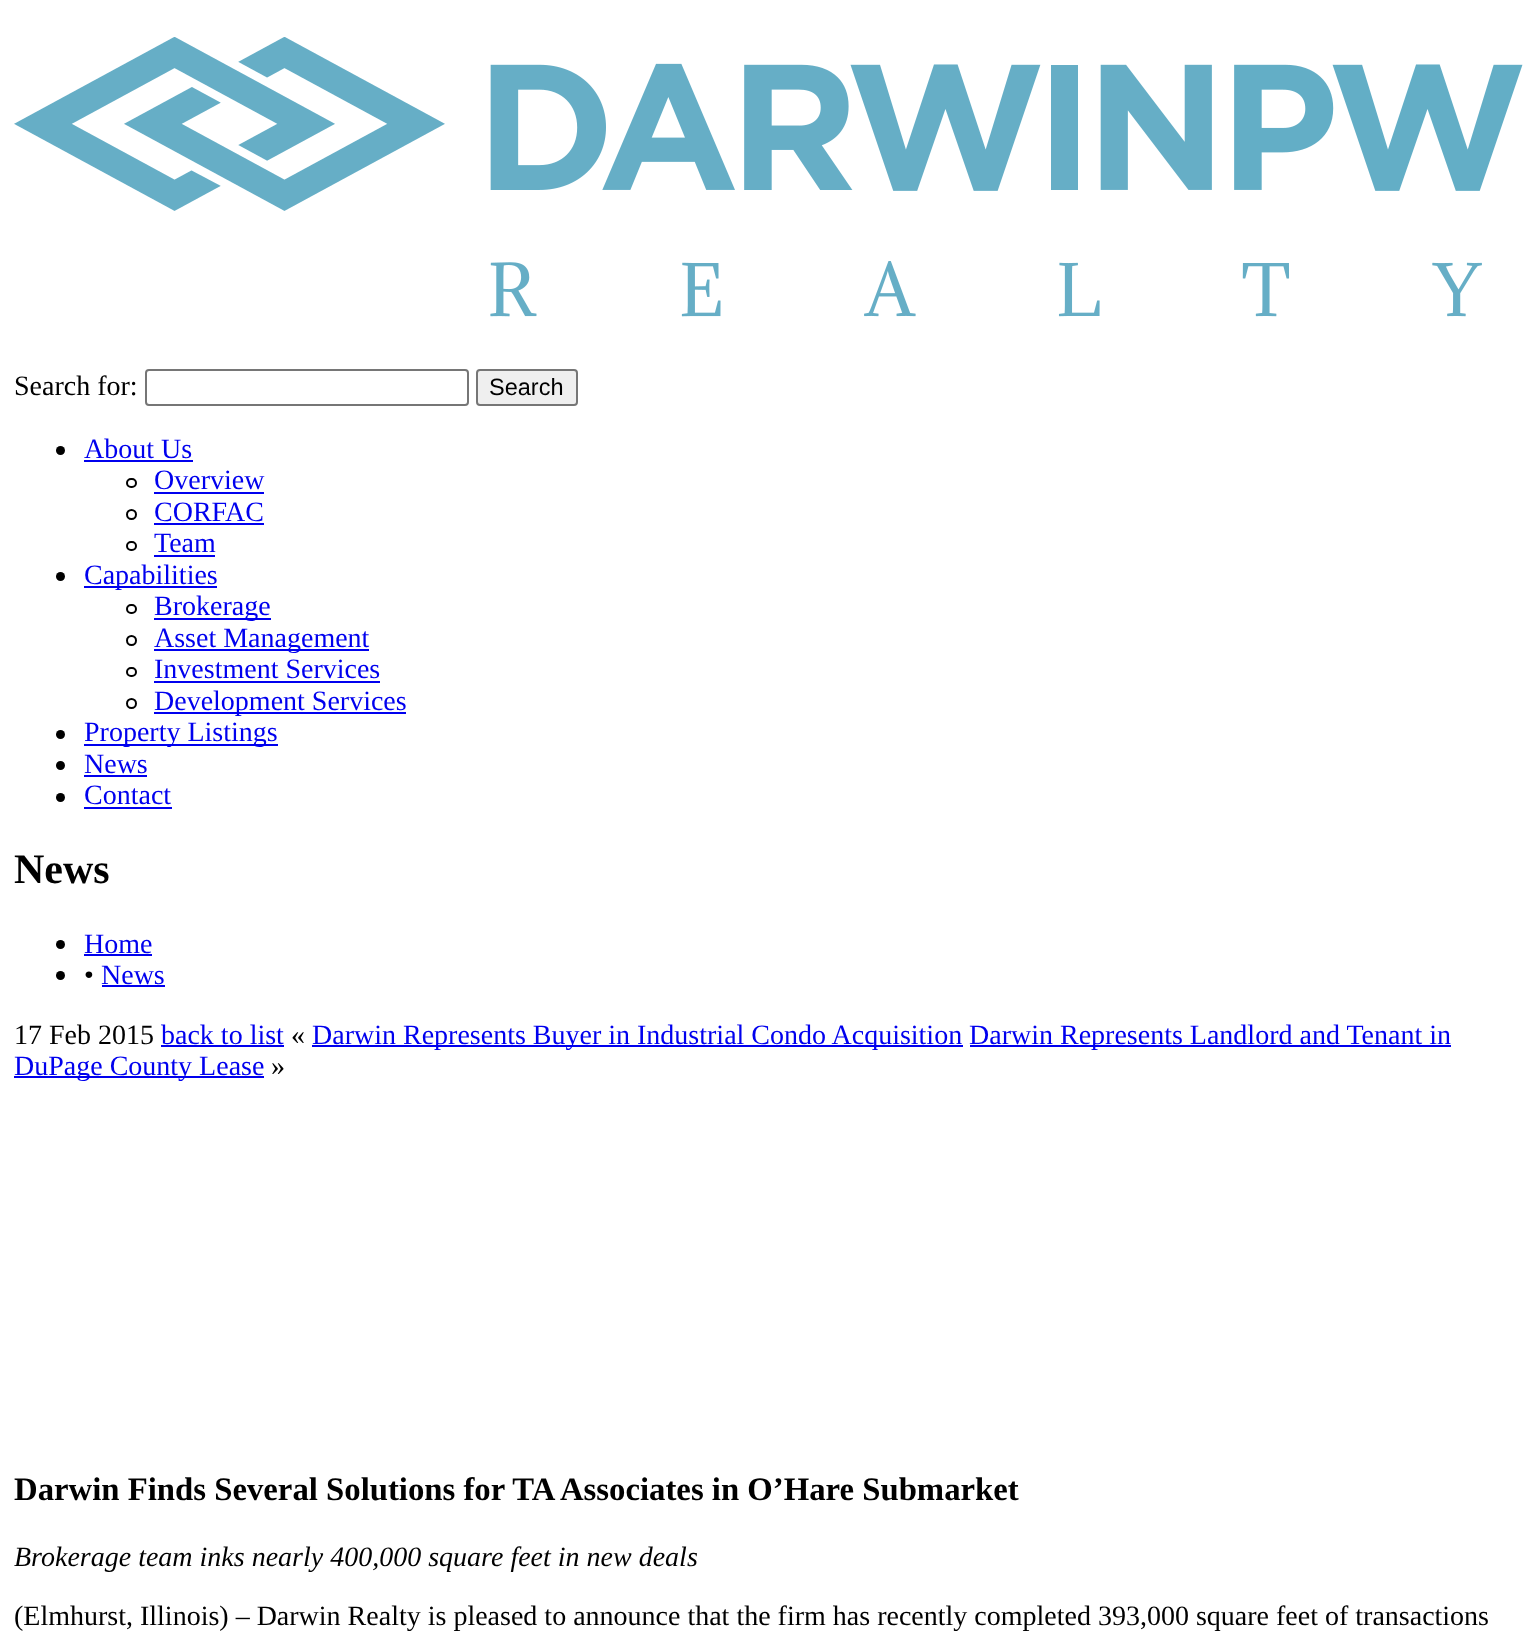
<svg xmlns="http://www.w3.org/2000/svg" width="1536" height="1636">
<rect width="100%" height="100%" fill="#fff"/>
<image x="14" y="37" width="1509" height="280" href="media/1.png"/>
<text x="14" y="395" style="font-family:Liberation Serif;font-size:28px;fill:#000">Search for:</text>
<rect x="146" y="370" width="322" height="35" rx="3" fill="none" stroke="#767676" stroke-width="2"/>
<rect x="477" y="370" width="100" height="35" rx="3" fill="#efefef" stroke="#767676" stroke-width="2"/>
<text x="489" y="395" style="font-family:Liberation Sans;font-size:23.5px;fill:#000">Search</text>
<circle cx="60.5" cy="450.5" r="4.5" fill="#000"/>
<text x="84" y="458" style="font-family:Liberation Serif;font-size:28px;fill:#00e">About Us</text>
<rect x="84" y="460" width="109" height="2" fill="#00e"/>
<rect x="127" y="479" width="9" height="8" rx="4" fill="none" stroke="#000" stroke-width="2"/>
<text x="154" y="489" style="font-family:Liberation Serif;font-size:28px;fill:#00e">Overview</text>
<rect x="154" y="492" width="110" height="2" fill="#00e"/>
<circle cx="131.5" cy="514.5" r="4.5" fill="none" stroke="#000" stroke-width="2"/>
<text x="154" y="521" style="font-family:Liberation Serif;font-size:28px;fill:#00e">CORFAC</text>
<rect x="154" y="523" width="110" height="2" fill="#00e"/>
<rect x="127" y="542" width="9" height="8" rx="4" fill="none" stroke="#000" stroke-width="2"/>
<text x="154" y="552" style="font-family:Liberation Serif;font-size:28px;fill:#00e">Team</text>
<rect x="154" y="555" width="61" height="2" fill="#00e"/>
<circle cx="60.5" cy="576.5" r="4.5" fill="#000"/>
<rect x="84" y="586" width="133" height="2" fill="#00e"/>
<text x="84" y="584" style="font-family:Liberation Serif;font-size:28px;fill:#00e">Capabilities</text>
<rect x="127" y="605" width="9" height="8" rx="4" fill="none" stroke="#000" stroke-width="2"/>
<rect x="154" y="618" width="117" height="2" fill="#00e"/>
<text x="154" y="615" style="font-family:Liberation Serif;font-size:28px;fill:#00e">Brokerage</text>
<circle cx="131.5" cy="640.5" r="4.5" fill="none" stroke="#000" stroke-width="2"/>
<rect x="154" y="649" width="215" height="2" fill="#00e"/>
<text x="154" y="647" style="font-family:Liberation Serif;font-size:28px;fill:#00e">Asset Management</text>
<rect x="127" y="668" width="9" height="8" rx="4" fill="none" stroke="#000" stroke-width="2"/>
<text x="154" y="678" style="font-family:Liberation Serif;font-size:28px;fill:#00e">Investment Services</text>
<rect x="154" y="681" width="226" height="2" fill="#00e"/>
<circle cx="131.5" cy="703.5" r="4.5" fill="none" stroke="#000" stroke-width="2"/>
<rect x="154" y="712" width="252" height="2" fill="#00e"/>
<text x="154" y="710" style="font-family:Liberation Serif;font-size:28px;fill:#00e">Development Services</text>
<circle cx="60.5" cy="734.5" r="4.5" fill="#000"/>
<rect x="84" y="744" width="194" height="2" fill="#00e"/>
<text x="84" y="741" style="font-family:Liberation Serif;font-size:28px;fill:#00e">Property Listings</text>
<circle cx="60.5" cy="765.5" r="4.5" fill="#000"/>
<text x="84" y="773" style="font-family:Liberation Serif;font-size:28px;fill:#00e">News</text>
<rect x="84" y="775" width="63" height="2" fill="#00e"/>
<circle cx="60.5" cy="797.5" r="4.5" fill="#000"/>
<text x="84" y="804" style="font-family:Liberation Serif;font-size:28px;fill:#00e">Contact</text>
<rect x="84" y="807" width="88" height="2" fill="#00e"/>
<text x="14" y="883" style="font-family:Liberation Serif;font-size:42px;font-weight:bold;fill:#000">News</text>
<circle cx="60.5" cy="944.5" r="4.5" fill="#000"/>
<text x="84" y="953" style="font-family:Liberation Serif;font-size:28px;fill:#00e">Home</text>
<rect x="84" y="954" width="68" height="2" fill="#00e"/>
<circle cx="60.5" cy="975.5" r="4.5" fill="#000"/>
<text x="84" y="984" style="font-family:Liberation Serif;font-size:28px;fill:#000">•</text>
<text x="101" y="984" style="font-family:Liberation Serif;font-size:28px;fill:#00e">News</text>
<rect x="102" y="985" width="63" height="2" fill="#00e"/>
<text x="14" y="1044" style="font-family:Liberation Serif;font-size:28px;fill:#000">17 Feb 2015</text>
<text x="161" y="1044" style="font-family:Liberation Serif;font-size:28px;fill:#00e">back to list</text>
<rect x="161" y="1045" width="123" height="2" fill="#00e"/>
<text x="291" y="1044" style="font-family:Liberation Serif;font-size:28px;fill:#000">«</text>
<rect x="312" y="1045" width="651" height="2" fill="#00e"/>
<text x="312" y="1044" style="font-family:Liberation Serif;font-size:28px;fill:#00e">Darwin Represents Buyer in Industrial Condo Acquisition</text>
<rect x="970" y="1045" width="481" height="2" fill="#00e"/>
<text x="969" y="1044" style="font-family:Liberation Serif;font-size:28px;fill:#00e">Darwin Represents Landlord and Tenant in</text>
<rect x="14" y="1076" width="250" height="2" fill="#00e"/>
<text x="14" y="1075" style="font-family:Liberation Serif;font-size:28px;fill:#00e">DuPage County Lease</text>
<text x="271" y="1075" style="font-family:Liberation Serif;font-size:28px;fill:#000">»</text>
<text x="14" y="1500" style="font-family:Liberation Serif;font-size:32.75px;font-weight:bold;fill:#000">Darwin Finds Several Solutions for TA Associates in O’Hare Submarket</text>
<text x="14" y="1566" style="font-family:Liberation Serif;font-size:28px;font-style:italic;fill:#000">Brokerage team inks nearly 400,000 square feet in new deals</text>
<text x="14" y="1625" style="font-family:Liberation Serif;font-size:28px;fill:#000">(Elmhurst, Illinois) – Darwin Realty is pleased to announce that the firm has recently completed 393,000 square feet of transactions</text>
</svg>
